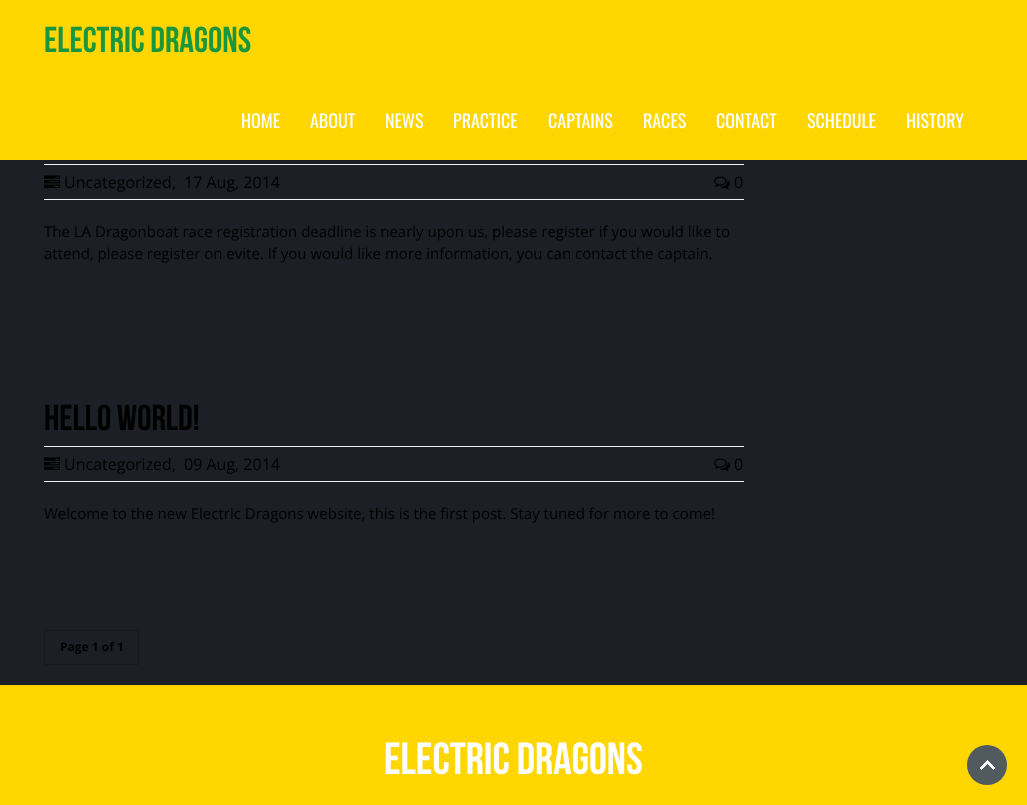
<svg xmlns="http://www.w3.org/2000/svg" width="1027" height="805">
<rect width="100%" height="100%" fill="#1c1f26"/>
<rect width="1027" height="160" fill="#ffd600"/>
<text x="44" y="52" style="font-family:Bebas Neue;font-size:36px;fill:#1c963b">Electric Dragons</text>
<text x="241" y="128" style="font-family:Oswald;font-size:18px;fill:#fff">HOME</text>
<text x="310" y="128" style="font-family:Oswald;font-size:18px;fill:#fff">ABOUT</text>
<text x="385" y="128" style="font-family:Oswald;font-size:18px;fill:#fff">NEWS</text>
<text x="453" y="128" style="font-family:Oswald;font-size:18px;fill:#fff">PRACTICE</text>
<text x="548" y="128" style="font-family:Oswald;font-size:18px;fill:#fff">CAPTAINS</text>
<text x="643" y="128" style="font-family:Oswald;font-size:18px;fill:#fff">RACES</text>
<text x="716" y="128" style="font-family:Oswald;font-size:18px;fill:#fff">CONTACT</text>
<text x="807" y="128" style="font-family:Oswald;font-size:18px;fill:#fff">SCHEDULE</text>
<text x="906" y="128" style="font-family:Oswald;font-size:18px;fill:#fff">HISTORY</text>
<rect x="44" y="164" width="700" height="1" fill="#f0f2f5"/>
<rect x="44" y="199" width="700" height="1" fill="#f0f2f5"/>
<image x="44" y="175" width="16" height="13" href="media/1.png"/>
<text x="64" y="188" style="font-family:Open Sans;font-size:16px;fill:#000">Uncategorized,</text>
<text x="184" y="188" style="font-family:Open Sans;font-size:16px;fill:#000">17 Aug, 2014</text>
<image x="714" y="176" width="16" height="13" href="media/2.png"/>
<text x="734" y="188" style="font-family:Open Sans;font-size:16px;fill:#000">0</text>
<text x="44" y="237" style="font-family:Open Sans;font-size:15px;fill:#000">The LA Dragonboat race registration deadline is nearly upon us, please register if you would like to</text>
<text x="44" y="259" style="font-family:Open Sans;font-size:15px;fill:#000">attend, please register on evite. If you would like more information, you can contact the captain.</text>
<text x="44" y="430" style="font-family:Bebas Neue;font-size:36px;fill:#000">Hello world!</text>
<rect x="44" y="446" width="700" height="1" fill="#f0f2f5"/>
<rect x="44" y="481" width="700" height="1" fill="#f0f2f5"/>
<image x="44" y="457" width="16" height="13" href="media/1.png"/>
<text x="64" y="470" style="font-family:Open Sans;font-size:16px;fill:#000">Uncategorized,</text>
<text x="184" y="470" style="font-family:Open Sans;font-size:16px;fill:#000">09 Aug, 2014</text>
<image x="714" y="458" width="16" height="13" href="media/2.png"/>
<text x="734" y="470" style="font-family:Open Sans;font-size:16px;fill:#000">0</text>
<text x="44" y="519" style="font-family:Open Sans;font-size:15px;fill:#000">Welcome to the new Electric Dragons website, this is the first post. Stay tuned for more to come!</text>
<rect x="44.5" y="630.5" width="94" height="34" rx="0.5" fill="none" stroke="#16191e"/>
<text x="60" y="651" style="font-family:Open Sans;font-size:12px;font-weight:bold;fill:#000">Page 1 of 1</text>
<rect y="685" width="1027" height="120" fill="#ffd600"/>
<text x="384" y="774" style="font-family:Bebas Neue;font-size:45px;fill:#fff">Electric Dragons</text>
<circle cx="987" cy="765" r="20" fill="#515a5f"/>
<image x="980" y="760" width="15" height="10" href="media/3.png"/>
</svg>
